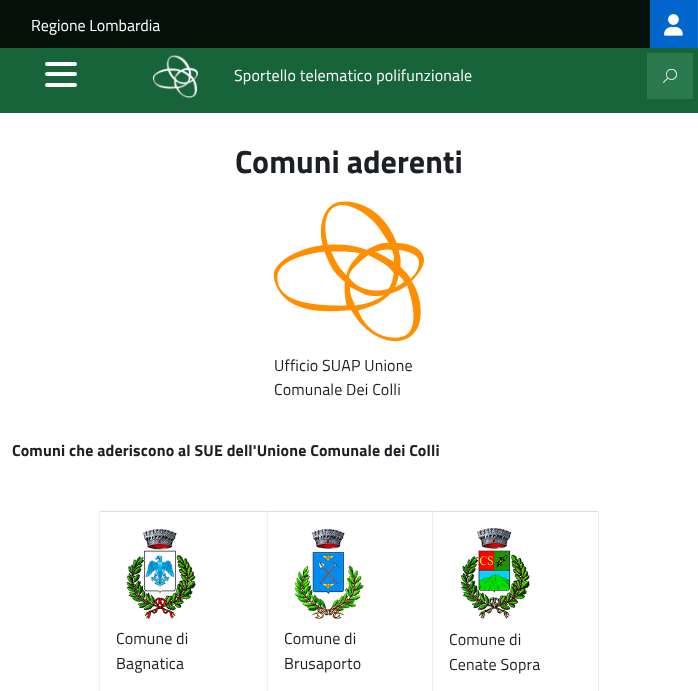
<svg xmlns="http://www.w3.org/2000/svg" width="698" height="691">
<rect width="100%" height="100%" fill="#fff"/>
<rect width="650" height="48" fill="#04110a"/>
<text x="31" y="31" style="font-family:Titillium Web;font-size:16px;fill:#fff">Regione Lombardia</text>
<rect x="650" width="47" height="48" fill="#06c"/>
<rect x="697" width="1" height="48" fill="#1a75d1"/>
<image x="664" y="14" width="19" height="22" href="media/1.png"/>
<rect y="48" width="698" height="65" fill="#17643b"/>
<rect x="45" y="72" width="32" height="4" rx="2" fill="#fff"/>
<rect x="45" y="62" width="32" height="4" rx="2" fill="#fff"/>
<rect x="45" y="83" width="32" height="4" rx="2" fill="#fff"/>
<image x="153" y="55" width="45" height="44" href="media/2.png"/>
<text x="234" y="81" style="font-family:Titillium Web;font-size:16px;letter-spacing:0.15px;fill:#fff">Sportello telematico polifunzionale</text>
<rect x="647" y="53" width="46" height="46" fill="#2a794f"/>
<text x="663" y="82" style="font-family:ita;font-size:14px;fill:#fff">🔍</text>
<text x="235" y="173" style="font-family:Titillium Web;font-size:32px;font-weight:bold;fill:#1c2024">Comuni aderenti</text>
<image x="274" y="201" width="150" height="141" href="media/3.png"/>
<text x="274" y="371" style="font-family:Titillium Web;font-size:16px;letter-spacing:0.15px;fill:#1c2024">Ufficio SUAP Unione</text>
<text x="274" y="395" style="font-family:Titillium Web;font-size:16px;letter-spacing:0.15px;fill:#1c2024">Comunale Dei Colli</text>
<text x="12" y="456" style="font-family:Titillium Web;font-size:16px;font-weight:bold;letter-spacing:0.15px;fill:#1c2024">Comuni che aderiscono al SUE dell'Unione Comunale dei Colli</text>
<rect x="99" y="511" width="500" height="1" fill="#d6dce3"/>
<rect x="267" y="511" width="1" height="180" fill="#eee"/>
<rect x="99" y="511" width="1" height="180" fill="#eee"/>
<image x="126" y="529" width="70" height="90" href="media/4.png"/>
<text x="116" y="644" style="font-family:Titillium Web;font-size:16px;letter-spacing:0.15px;fill:#1c2024">Comune di</text>
<text x="116" y="669" style="font-family:Titillium Web;font-size:16px;letter-spacing:0.15px;fill:#1c2024">Bagnatica</text>
<rect x="432" y="511" width="1" height="180" fill="#eee"/>
<image x="294" y="529" width="70" height="90" href="media/5.png"/>
<text x="284" y="644" style="font-family:Titillium Web;font-size:16px;letter-spacing:0.15px;fill:#1c2024">Comune di</text>
<text x="284" y="669" style="font-family:Titillium Web;font-size:16px;letter-spacing:0.15px;fill:#1c2024">Brusaporto</text>
<rect x="598" y="511" width="1" height="180" fill="#eee"/>
<image x="460" y="528" width="70" height="92" href="media/6.png"/>
<text x="449" y="645" style="font-family:Titillium Web;font-size:16px;letter-spacing:0.15px;fill:#1c2024">Comune di</text>
<text x="449" y="670" style="font-family:Titillium Web;font-size:16px;letter-spacing:0.15px;fill:#1c2024">Cenate Sopra</text>
</svg>
